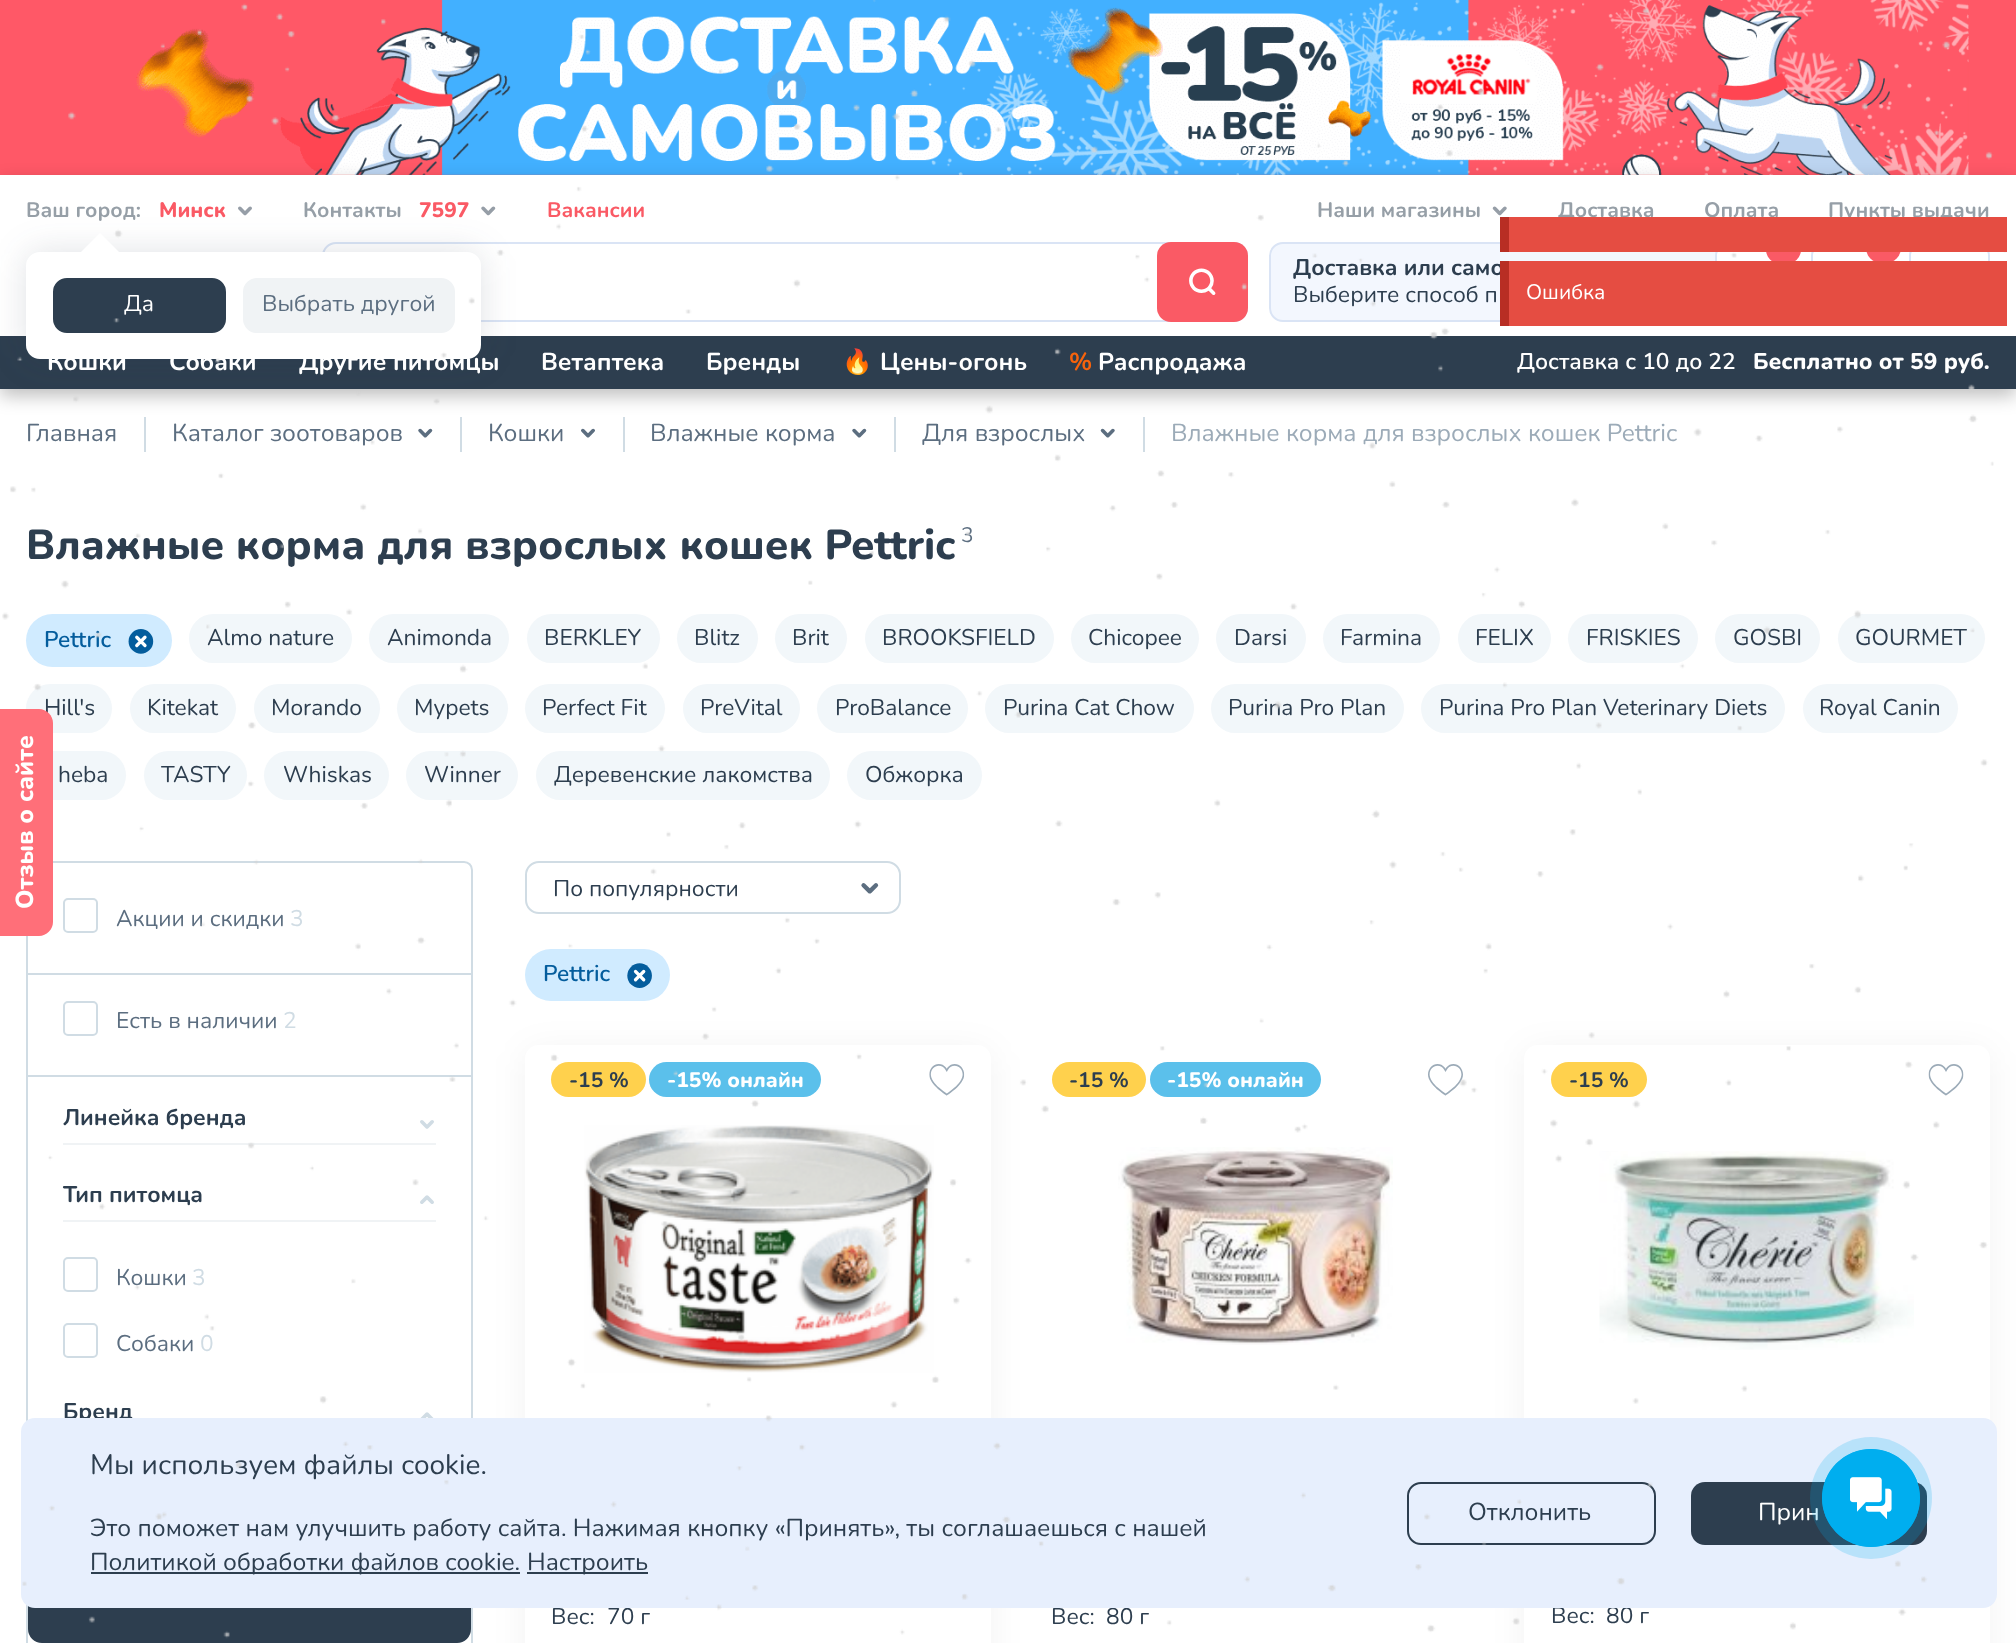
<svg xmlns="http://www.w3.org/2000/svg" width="2016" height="1643">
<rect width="100%" height="100%" fill="#fff"/>
<rect width="2016" height="175" fill="#ff5867"/>
<image x="136" y="0" width="1833" height="175" href="media/2.png"/>
<rect x="144" y="417" width="2" height="35" fill="#d0dce4"/>
<rect x="460" y="417" width="2" height="35" fill="#d0dce4"/>
<rect x="623" y="417" width="2" height="35" fill="#d0dce4"/>
<rect x="894" y="417" width="2" height="35" fill="#d0dce4"/>
<rect x="1143" y="417" width="2" height="35" fill="#d0dce4"/>
<rect y="182" width="2016" height="214" fill="#00000040" filter="blur(9px)"/>
<rect y="175" width="2016" height="161" fill="#fff"/>
<text x="26" y="217" style="font-family:Nunito;font-size:21px;font-weight:bold;fill:#969fa7">Ваш город:</text>
<text x="159" y="217" style="font-family:Nunito;font-size:21px;font-weight:800;fill:#fa5a65">Минск</text>
<image x="238" y="206" width="14" height="10" href="media/3.png"/>
<image x="481" y="206" width="15" height="10" href="media/4.png"/>
<rect x="323" y="243" width="924" height="78" rx="13" fill="none" stroke="#dae4f5" stroke-width="2"/>
<rect y="336" width="2016" height="53" fill="#2d3e4f"/>
<rect x="26" y="252" width="455" height="107" rx="14" fill="#2d3e4f26" filter="blur(17.5px)"/>
<rect x="26" y="252" width="455" height="107" rx="14" fill="#fff"/>
<path d="M121 254h-42l21-21z" fill="#fff"/>
<rect x="54" y="279" width="171" height="53" rx="13" fill="#2d3e4f" stroke="#2d3e4f" stroke-width="2"/>
<text x="124" y="311" style="font-family:Nunito;font-size:22.75px;fill:#fff">Да</text>
<rect x="244" y="279" width="210" height="53" rx="13" fill="#f0f3f5" stroke="#f0f3f5" stroke-width="2"/>
<text x="262" y="311" style="font-family:Nunito;font-size:22.75px;fill:#5c6e80">Выбрать другой</text>
<text x="303" y="217" style="font-family:Nunito;font-size:21px;font-weight:bold;fill:#969fa7">Контакты</text>
<text x="419" y="217" style="font-family:Nunito;font-size:21px;font-weight:800;fill:#fa5a65">7597</text>
<text x="547" y="217" style="font-family:Nunito;font-size:21px;font-weight:bold;fill:#fa5a65">Вакансии</text>
<text x="1317" y="217" style="font-family:Nunito;font-size:21px;font-weight:bold;fill:#969fa7">Наши магазины</text>
<image x="1492" y="206" width="15" height="10" href="media/5.png"/>
<text x="1558" y="217" style="font-family:Nunito;font-size:21px;font-weight:bold;fill:#969fa7">Доставка</text>
<text x="1704" y="217" style="font-family:Nunito;font-size:21px;font-weight:bold;fill:#969fa7">Оплата</text>
<text x="1828" y="217" style="font-family:Nunito;font-size:21px;font-weight:bold;fill:#969fa7">Пункты выдачи</text>
<rect x="1157" y="242" width="91" height="80" rx="14" fill="#fa5a65"/>
<image x="1189" y="268" width="27" height="27" href="media/6.png"/>
<rect x="1270" y="243" width="523" height="78" rx="13" fill="#f3f7fe" stroke="#dae4f5" stroke-width="2"/>
<text x="1293" y="275" style="font-family:Nunito;font-size:22.75px;font-weight:bold;fill:#2d3e4f">Доставка или само</text>
<text x="1293" y="302" style="font-family:Nunito;font-size:22.75px;fill:#2d3e4f">Выберите способ п</text>
<rect x="1716" y="243" width="77" height="78" rx="13" fill="#fff" stroke="#dae4f5" stroke-width="2"/>
<rect x="1766" y="235" width="35" height="29" rx="14.5" fill="#fa5a65"/>
<rect x="1812" y="243" width="79" height="78" rx="13" fill="none" stroke="#dae4f5" stroke-width="2"/>
<rect x="1866" y="233" width="35" height="30" rx="15" fill="#fa5a65"/>
<rect x="1910" y="243" width="79" height="78" rx="13" fill="none" stroke="#dae4f5" stroke-width="2"/>
<text x="47" y="370" style="font-family:Nunito;font-size:24.5px;font-weight:bold;fill:#fff">Кошки</text>
<text x="169" y="370" style="font-family:Nunito;font-size:24.5px;font-weight:bold;fill:#fff">Собаки</text>
<text x="299" y="370" style="font-family:Nunito;font-size:24.5px;font-weight:bold;fill:#fff">Другие питомцы</text>
<text x="541" y="370" style="font-family:Nunito;font-size:24.5px;font-weight:bold;fill:#fff">Ветаптека</text>
<text x="706" y="370" style="font-family:Nunito;font-size:24.5px;font-weight:bold;fill:#fff">Бренды</text>
<text x="842" y="370" style="font-family:Noto Color Emoji;font-size:24.5px;font-weight:bold;fill:#fff">🔥</text>
<text x="880" y="370" style="font-family:Nunito;font-size:24.5px;font-weight:bold;fill:#fff">Цены-огонь</text>
<text x="1069" y="370" style="font-family:Nunito;font-size:24.5px;font-weight:bold;fill:#f7630c">%</text>
<text x="1098" y="370" style="font-family:Nunito;font-size:24.5px;font-weight:bold;fill:#fff">Распродажа</text>
<text x="1517" y="369" style="font-family:Nunito;font-size:22.75px;font-weight:600;fill:#fff">Доставка с 10 до 22</text>
<text x="1753" y="369" style="font-family:Nunito;font-size:22.75px;font-weight:800;fill:#fff">Бесплатно от 59 руб.</text>
<rect x="26" y="684" width="86" height="49" rx="24.5" fill="#f2f7fa"/>
<text x="44" y="715" style="font-family:Nunito;font-size:22.75px;fill:#2d3e4f">Hill's</text>
<rect x="26" y="751" width="100" height="49" rx="24.5" fill="#f2f7fa"/>
<path d="M35 862h429c4.5 0 8 3.5 8 8v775c0 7-6 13-13 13h-419c-7 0-13-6-13-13v-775c0-4.5 3.5-8 8-8z" fill="none" stroke="#d0dce4" stroke-width="2"/>
<path d="M0 709h39c7.5 0 14 6.5 14 14v199c0 7.5-6.5 14-14 14h-39z" fill="#ff6f79"/>
<text x="33" y="909" transform="rotate(-90 33 909)" style="font-family:Nunito;font-size:24.5px;font-weight:800;fill:#fff">Отзыв о сайте</text>
<text x="26" y="441" style="font-family:Nunito;font-size:24.5px;fill:#5c6e80">Главная</text>
<text x="172" y="441" style="font-family:Nunito;font-size:24.5px;fill:#5c6e80">Каталог зоотоваров</text>
<image x="418" y="428" width="15" height="10" href="media/7.png"/>
<text x="488" y="441" style="font-family:Nunito;font-size:24.5px;fill:#5c6e80">Кошки</text>
<image x="581" y="428" width="14" height="10" href="media/8.png"/>
<text x="650" y="441" style="font-family:Nunito;font-size:24.5px;fill:#5c6e80">Влажные корма</text>
<image x="852" y="428" width="15" height="10" href="media/7.png"/>
<text x="922" y="441" style="font-family:Nunito;font-size:24.5px;fill:#5c6e80">Для взрослых</text>
<image x="1100" y="428" width="15" height="10" href="media/9.png"/>
<text x="1171" y="441" style="font-family:Nunito;font-size:24.5px;fill:#9cabb8">Влажные корма для взрослых кошек Pettric</text>
<text x="26" y="559" style="font-family:Nunito;font-size:42px;font-weight:800;fill:#2d3e4f">Влажные корма для взрослых кошек Pettric</text>
<text x="961" y="542" style="font-family:Nunito;font-size:21px;fill:#5c6e80">3</text>
<rect x="26" y="614" width="146" height="53" rx="26.5" fill="#d0ebff"/>
<text x="44" y="647" style="font-family:Nunito;font-size:22.75px;font-weight:600;fill:#045d9d">Pettric</text>
<image x="128" y="629" width="26" height="25" href="media/10.png"/>
<rect x="189" y="614" width="163" height="49" rx="24.5" fill="#f2f7fa"/>
<text x="207" y="645" style="font-family:Nunito;font-size:22.75px;fill:#2d3e4f">Almo nature</text>
<rect x="369" y="614" width="140" height="49" rx="24.5" fill="#f2f7fa"/>
<text x="387" y="645" style="font-family:Nunito;font-size:22.75px;fill:#2d3e4f">Animonda</text>
<rect x="527" y="614" width="133" height="49" rx="24.5" fill="#f2f7fa"/>
<text x="544" y="645" style="font-family:Nunito;font-size:22.75px;fill:#2d3e4f">BERKLEY</text>
<rect x="677" y="614" width="81" height="49" rx="24.5" fill="#f2f7fa"/>
<text x="694" y="645" style="font-family:Nunito;font-size:22.75px;fill:#2d3e4f">Blitz</text>
<rect x="775" y="614" width="72" height="49" rx="24.5" fill="#f2f7fa"/>
<text x="792" y="645" style="font-family:Nunito;font-size:22.75px;fill:#2d3e4f">Brit</text>
<rect x="865" y="614" width="189" height="49" rx="24.5" fill="#f2f7fa"/>
<text x="882" y="645" style="font-family:Nunito;font-size:22.75px;fill:#2d3e4f">BROOKSFIELD</text>
<rect x="1071" y="614" width="128" height="49" rx="24.5" fill="#f2f7fa"/>
<text x="1088" y="645" style="font-family:Nunito;font-size:22.75px;fill:#2d3e4f">Chicopee</text>
<rect x="1216" y="614" width="90" height="49" rx="24.5" fill="#f2f7fa"/>
<text x="1234" y="645" style="font-family:Nunito;font-size:22.75px;fill:#2d3e4f">Darsi</text>
<rect x="1323" y="614" width="117" height="49" rx="24.5" fill="#f2f7fa"/>
<text x="1340" y="645" style="font-family:Nunito;font-size:22.75px;fill:#2d3e4f">Farmina</text>
<rect x="1458" y="614" width="93" height="49" rx="24.5" fill="#f2f7fa"/>
<text x="1475" y="645" style="font-family:Nunito;font-size:22.75px;fill:#2d3e4f">FELIX</text>
<rect x="1568" y="614" width="130" height="49" rx="24.5" fill="#f2f7fa"/>
<text x="1586" y="645" style="font-family:Nunito;font-size:22.75px;fill:#2d3e4f">FRISKIES</text>
<rect x="1715" y="614" width="105" height="49" rx="24.5" fill="#f2f7fa"/>
<text x="1733" y="645" style="font-family:Nunito;font-size:22.75px;fill:#2d3e4f">GOSBI</text>
<rect x="1838" y="614" width="147" height="49" rx="24.5" fill="#f2f7fa"/>
<text x="1855" y="645" style="font-family:Nunito;font-size:22.75px;fill:#2d3e4f">GOURMET</text>
<rect x="130" y="684" width="106" height="49" rx="24.5" fill="#f2f7fa"/>
<text x="147" y="715" style="font-family:Nunito;font-size:22.75px;fill:#2d3e4f">Kitekat</text>
<rect x="254" y="684" width="126" height="49" rx="24.5" fill="#f2f7fa"/>
<text x="271" y="715" style="font-family:Nunito;font-size:22.75px;fill:#2d3e4f">Morando</text>
<rect x="397" y="684" width="111" height="49" rx="24.5" fill="#f2f7fa"/>
<text x="414" y="715" style="font-family:Nunito;font-size:22.75px;fill:#2d3e4f">Mypets</text>
<rect x="525" y="684" width="140" height="49" rx="24.5" fill="#f2f7fa"/>
<text x="542" y="715" style="font-family:Nunito;font-size:22.75px;fill:#2d3e4f">Perfect Fit</text>
<rect x="683" y="684" width="117" height="49" rx="24.5" fill="#f2f7fa"/>
<text x="700" y="715" style="font-family:Nunito;font-size:22.75px;fill:#2d3e4f">PreVital</text>
<rect x="817" y="684" width="151" height="49" rx="24.5" fill="#f2f7fa"/>
<text x="835" y="715" style="font-family:Nunito;font-size:22.75px;fill:#2d3e4f">ProBalance</text>
<rect x="985" y="684" width="209" height="49" rx="24.5" fill="#f2f7fa"/>
<text x="1003" y="715" style="font-family:Nunito;font-size:22.75px;fill:#2d3e4f">Purina Cat Chow</text>
<rect x="1211" y="684" width="193" height="49" rx="24.5" fill="#f2f7fa"/>
<text x="1228" y="715" style="font-family:Nunito;font-size:22.75px;fill:#2d3e4f">Purina Pro Plan</text>
<rect x="1421" y="684" width="364" height="49" rx="24.5" fill="#f2f7fa"/>
<text x="1439" y="715" style="font-family:Nunito;font-size:22.75px;fill:#2d3e4f">Purina Pro Plan Veterinary Diets</text>
<rect x="1803" y="684" width="155" height="49" rx="24.5" fill="#f2f7fa"/>
<text x="1819" y="715" style="font-family:Nunito;font-size:22.75px;fill:#2d3e4f">Royal Canin</text>
<text x="58" y="782" style="font-family:Nunito;font-size:22.75px;fill:#2d3e4f">heba</text>
<rect x="144" y="751" width="103" height="49" rx="24.5" fill="#f2f7fa"/>
<text x="161" y="782" style="font-family:Nunito;font-size:22.75px;fill:#2d3e4f">TASTY</text>
<rect x="264" y="751" width="125" height="49" rx="24.5" fill="#f2f7fa"/>
<text x="283" y="782" style="font-family:Nunito;font-size:22.75px;fill:#2d3e4f">Whiskas</text>
<rect x="406" y="751" width="112" height="49" rx="24.5" fill="#f2f7fa"/>
<text x="424" y="782" style="font-family:Nunito;font-size:22.75px;fill:#2d3e4f">Winner</text>
<rect x="536" y="751" width="294" height="49" rx="24.5" fill="#f2f7fa"/>
<text x="554" y="782" style="font-family:Nunito;font-size:22.75px;fill:#2d3e4f">Деревенские лакомства</text>
<rect x="847" y="751" width="135" height="49" rx="24.5" fill="#f2f7fa"/>
<text x="865" y="782" style="font-family:Nunito;font-size:22.75px;fill:#2d3e4f">Обжорка</text>
<rect x="28" y="973" width="443" height="2" fill="#d0dce4"/>
<rect x="64" y="899" width="33" height="33" rx="4" fill="none" stroke="#d0dce4" stroke-width="2"/>
<text x="116" y="926" style="font-family:Nunito;font-size:22.75px;fill:#5c6e80">Акции и скидки</text>
<text x="290" y="926" style="font-family:Nunito;font-size:22.75px;fill:#d0dce4">3</text>
<rect x="64" y="1002" width="33" height="33" rx="4" fill="none" stroke="#d0dce4" stroke-width="2"/>
<text x="116" y="1028" style="font-family:Nunito;font-size:22.75px;fill:#5c6e80">Есть в наличии</text>
<text x="283" y="1028" style="font-family:Nunito;font-size:22.75px;fill:#d0dce4">2</text>
<rect x="28" y="1075" width="443" height="2" fill="#d0dce4"/>
<rect x="63" y="1143" width="373" height="2" fill="#f0f3f5"/>
<text x="63" y="1125" style="font-family:Nunito;font-size:22.75px;font-weight:bold;fill:#2d3e4f">Линейка бренда</text>
<image x="420" y="1120" width="14" height="9" href="media/11.png"/>
<rect x="63" y="1220" width="373" height="2" fill="#f0f3f5"/>
<text x="63" y="1202" style="font-family:Nunito;font-size:22.75px;font-weight:bold;fill:#2d3e4f">Тип питомца</text>
<image x="420" y="1195" width="14" height="9" href="media/12.png"/>
<rect x="64" y="1258" width="33" height="33" rx="4" fill="none" stroke="#d0dce4" stroke-width="2"/>
<text x="116" y="1285" style="font-family:Nunito;font-size:22.75px;fill:#5c6e80">Кошки</text>
<text x="192" y="1285" style="font-family:Nunito;font-size:22.75px;fill:#d0dce4">3</text>
<rect x="64" y="1324" width="33" height="33" rx="4" fill="none" stroke="#d0dce4" stroke-width="2"/>
<text x="116" y="1351" style="font-family:Nunito;font-size:22.75px;fill:#5c6e80">Собаки</text>
<text x="200" y="1351" style="font-family:Nunito;font-size:22.75px;fill:#d0dce4">0</text>
<text x="63" y="1419" style="font-family:Nunito;font-size:22.75px;font-weight:bold;fill:#2d3e4f">Бренд</text>
<image x="420" y="1412" width="14" height="6" href="media/13.png"/>
<rect x="29" y="1564" width="441" height="78" rx="13" fill="#2d3e4f" stroke="#2d3e4f" stroke-width="2"/>
<rect x="526" y="862" width="374" height="51" rx="13" fill="none" stroke="#d0dce4" stroke-width="2"/>
<text x="553" y="896" style="font-family:Nunito;font-size:22.75px;fill:#2d3e4f">По популярности</text>
<image x="861" y="883" width="18" height="11" href="media/14.png"/>
<rect x="525" y="949" width="145" height="52" rx="26" fill="#d0ebff"/>
<text x="543" y="981" style="font-family:Nunito;font-size:22.75px;font-weight:600;fill:#045d9d">Pettric</text>
<image x="627" y="963" width="25" height="25" href="media/15.png"/>
<rect x="525" y="1050" width="466" height="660" rx="14" fill="#0000000d" filter="blur(17.5px)"/>
<rect x="525" y="1045" width="466" height="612" rx="14" fill="#fff"/>
<rect x="551" y="1062" width="95" height="35" rx="17.5" fill="#ffd14d"/>
<text x="569" y="1087" style="font-family:Nunito;font-size:21px;font-weight:bold;fill:#2d3e4f">-15 %</text>
<rect x="649" y="1062" width="172" height="35" rx="17.5" fill="#5bc0eb"/>
<text x="667" y="1087" style="font-family:Nunito;font-size:21px;font-weight:800;fill:#fff">-15% онлайн</text>
<image x="584" y="1125" width="350" height="248" href="media/16.png"/>
<image x="929" y="1064" width="36" height="32" href="media/17.png"/>
<text x="551" y="1624" style="font-family:Nunito;font-size:22.75px;fill:#2d3e4f">Вес:</text>
<text x="607" y="1624" style="font-family:Nunito;font-size:22.75px;fill:#2d3e4f">70 г</text>
<rect x="1052" y="1062" width="94" height="35" rx="17.5" fill="#ffd14d"/>
<text x="1069" y="1087" style="font-family:Nunito;font-size:21px;font-weight:bold;fill:#2d3e4f">-15 %</text>
<rect x="1150" y="1062" width="171" height="35" rx="17.5" fill="#5bc0eb"/>
<text x="1167" y="1087" style="font-family:Nunito;font-size:21px;font-weight:800;fill:#fff">-15% онлайн</text>
<image x="1118" y="1147" width="275" height="198" href="media/18.png"/>
<image x="1428" y="1064" width="35" height="32" href="media/19.png"/>
<text x="1051" y="1624" style="font-family:Nunito;font-size:22.75px;fill:#2d3e4f">Вес:</text>
<text x="1106" y="1624" style="font-family:Nunito;font-size:22.75px;fill:#2d3e4f">80 г</text>
<rect x="1524" y="1050" width="466" height="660" rx="14" fill="#0000000d" filter="blur(17.5px)"/>
<rect x="1524" y="1045" width="466" height="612" rx="14" fill="#fff"/>
<rect x="1551" y="1062" width="96" height="35" rx="17.5" fill="#ffd14d"/>
<text x="1569" y="1087" style="font-family:Nunito;font-size:21px;font-weight:bold;fill:#2d3e4f">-15 %</text>
<image x="1599" y="1151" width="315" height="199" href="media/20.png"/>
<image x="1928" y="1064" width="36" height="32" href="media/21.png"/>
<text x="1551" y="1623" style="font-family:Nunito;font-size:22.75px;fill:#2d3e4f">Вес:</text>
<text x="1606" y="1623" style="font-family:Nunito;font-size:22.75px;fill:#2d3e4f">80 г</text>
<rect x="21" y="1418" width="1976" height="190" rx="14" fill="#e7effd"/>
<text x="90" y="1474" style="font-family:Nunito;font-size:28px;fill:#2d3e4f">Мы используем файлы cookie.</text>
<text x="90" y="1536" style="font-family:Nunito;font-size:24.5px;fill:#2d3e4f">Это поможет нам улучшить работу сайта. Нажимая кнопку «Принять», ты соглашаешься с нашей</text>
<rect x="91" y="1572" width="429" height="2" fill="#2d3e4f"/>
<text x="90" y="1570" style="font-family:Nunito;font-size:24.5px;fill:#2d3e4f">Политикой обработки файлов cookie.</text>
<rect x="527" y="1572" width="121" height="2" fill="#2d3e4f"/>
<text x="527" y="1570" style="font-family:Nunito;font-size:24.5px;fill:#2d3e4f">Настроить</text>
<rect x="1408" y="1483" width="247" height="61" rx="13" fill="none" stroke="#2d3e4f" stroke-width="2"/>
<text x="1468" y="1520" style="font-family:Nunito;font-size:24.5px;fill:#2d3e4f">Отклонить</text>
<rect x="1691" y="1482" width="236" height="63" rx="14" fill="#2d3e4f"/>
<text x="1758" y="1520" style="font-family:Nunito;font-size:24.5px;fill:#fff">Прин</text>
<image x="2" y="0" width="2005" height="1639" href="media/1.png"/>
<rect x="1509" y="217" width="498" height="35" fill="#e54d42"/>
<rect x="1500" y="217" width="9" height="35" fill="#b82e24"/>
<rect x="1509" y="261" width="498" height="65" fill="#e54d42"/>
<rect x="1500" y="261" width="9" height="65" fill="#b82e24"/>
<text x="1526" y="299" style="font-family:Nunito;font-size:21px;fill:#fff">Ошибка</text>
<circle cx="1871" cy="1498" r="61" fill="#00aeef33"/>
<circle cx="1871" cy="1498" r="48.5" fill="none" stroke="#00aeef"/>
<circle cx="1871" cy="1498" r="49" fill="#00aeef"/>
<image x="1850" y="1477" width="42" height="42" href="media/22.png"/>
</svg>
